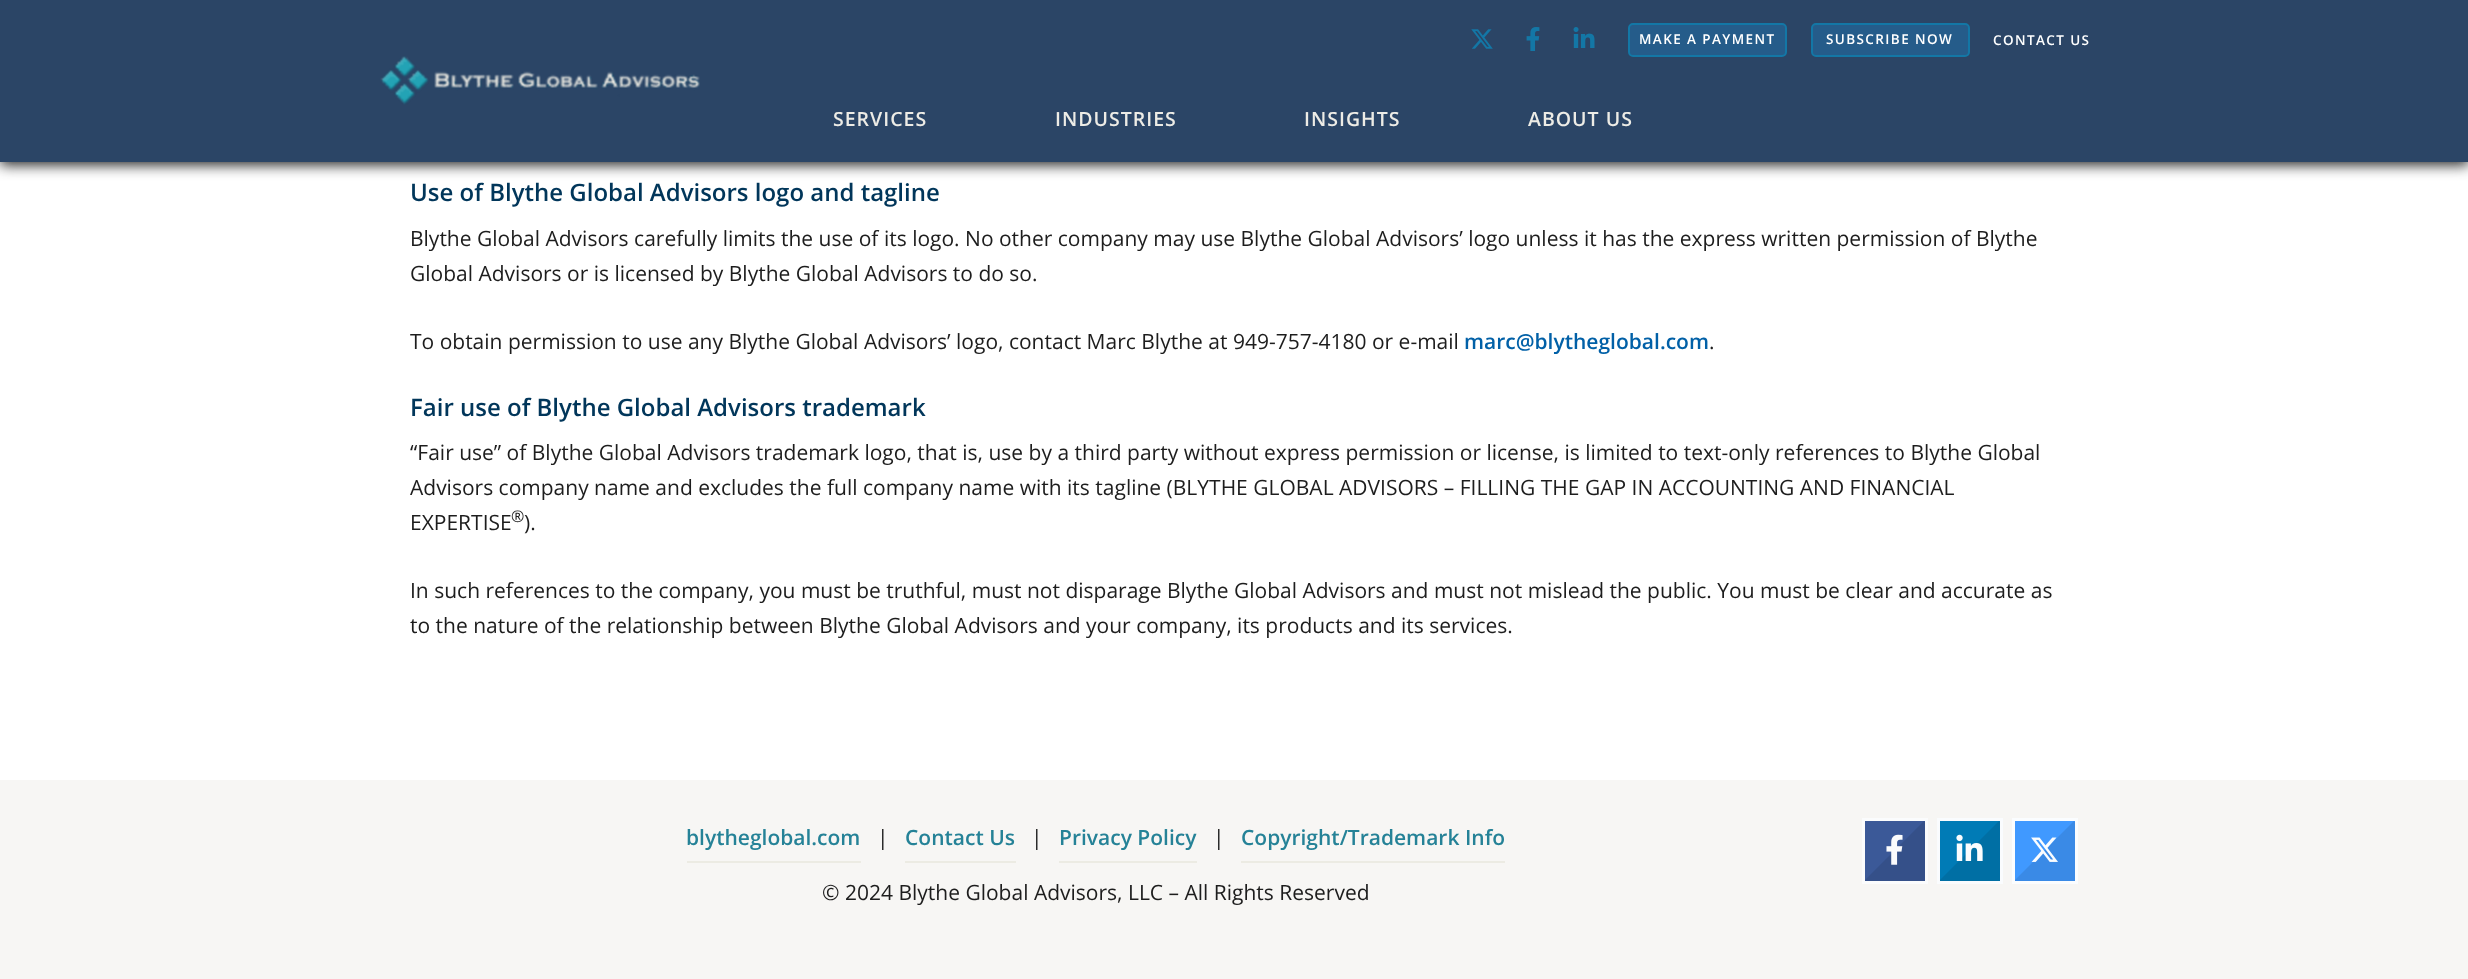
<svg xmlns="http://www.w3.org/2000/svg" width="2468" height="979">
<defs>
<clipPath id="clip1"><rect x="1865" y="821" width="60" height="60"/></clipPath>
<clipPath id="clip2"><rect x="1940" y="821" width="60" height="60"/></clipPath>
<clipPath id="clip3"><rect x="2015" y="821" width="60" height="60"/></clipPath>
</defs>
<rect width="100%" height="100%" fill="#fff"/>
<rect y="3" width="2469" height="162" fill="#222" filter="blur(7px)"/>
<rect width="2468" height="162" fill="#2b4566"/>
<image x="1471" y="29" width="22" height="20" href="media/1.png"/>
<image x="1526" y="27" width="14" height="24" href="media/2.png"/>
<image x="1573" y="27" width="22" height="21" href="media/3.png"/>
<rect x="1629" y="24" width="157" height="32" rx="4" fill="#255c8a" stroke="#1377a6" stroke-width="2"/>
<text x="1639" y="44" style="font-family:Open Sans;font-size:13.5px;font-weight:600;letter-spacing:1.4px;fill:#fff">MAKE A PAYMENT</text>
<rect x="1812" y="24" width="157" height="32" rx="4" fill="#255c8a" stroke="#1377a6" stroke-width="2"/>
<text x="1826" y="44" style="font-family:Open Sans;font-size:13.5px;font-weight:600;letter-spacing:1.4px;fill:#fff">SUBSCRIBE NOW</text>
<text x="1993" y="45" style="font-family:Open Sans;font-size:13.5px;font-weight:600;letter-spacing:1.4px;fill:#fff">CONTACT US</text>
<image x="380" y="56" width="320" height="49" href="media/4.png"/>
<text x="833" y="126" style="font-family:Open Sans;font-size:19.5px;font-weight:600;letter-spacing:1px;fill:#edece6">SERVICES</text>
<text x="1055" y="126" style="font-family:Open Sans;font-size:19.5px;font-weight:600;letter-spacing:1px;fill:#edece6">INDUSTRIES</text>
<text x="1304" y="126" style="font-family:Open Sans;font-size:19.5px;font-weight:600;letter-spacing:1px;fill:#edece6">INSIGHTS</text>
<text x="1528" y="126" style="font-family:Open Sans;font-size:19.5px;font-weight:600;letter-spacing:1px;fill:#edece6">ABOUT US</text>
<text x="410" y="201" style="font-family:Open Sans;font-size:24px;font-weight:600;fill:#01365a">Use of Blythe Global Advisors logo and tagline</text>
<text x="410" y="246" style="font-family:Open Sans;font-size:21px;fill:#1d1d1d">Blythe Global Advisors carefully limits the use of its logo. No other company may use Blythe Global Advisors’ logo unless it has the express written permission of Blythe</text>
<text x="410" y="281" style="font-family:Open Sans;font-size:21px;fill:#1d1d1d">Global Advisors or is licensed by Blythe Global Advisors to do so.</text>
<text x="410" y="349" style="font-family:Open Sans;font-size:21px;fill:#1d1d1d">To obtain permission to use any Blythe Global Advisors’ logo, contact Marc Blythe at 949-757-4180 or e-mail</text>
<text x="1464" y="349" style="font-family:Open Sans;font-size:21px;font-weight:600;fill:#0160a7">marc@blytheglobal.com</text>
<text x="1709" y="349" style="font-family:Open Sans;font-size:21px;fill:#1d1d1d">.</text>
<text x="410" y="416" style="font-family:Open Sans;font-size:24px;font-weight:600;fill:#01365a">Fair use of Blythe Global Advisors trademark</text>
<text x="410" y="460" style="font-family:Open Sans;font-size:21px;fill:#1d1d1d">“Fair use” of Blythe Global Advisors trademark logo, that is, use by a third party without express permission or license, is limited to text-only references to Blythe Global</text>
<text x="410" y="495" style="font-family:Open Sans;font-size:21px;fill:#1d1d1d">Advisors company name and excludes the full company name with its tagline (BLYTHE GLOBAL ADVISORS – FILLING THE GAP IN ACCOUNTING AND FINANCIAL</text>
<text x="410" y="530" style="font-family:Open Sans;font-size:21px;fill:#1d1d1d">EXPERTISE</text>
<text x="511" y="522" style="font-family:Open Sans;font-size:16px;fill:#1d1d1d">®</text>
<text x="524" y="530" style="font-family:Open Sans;font-size:21px;fill:#1d1d1d">).</text>
<text x="410" y="598" style="font-family:Open Sans;font-size:21px;fill:#1d1d1d">In such references to the company, you must be truthful, must not disparage Blythe Global Advisors and must not mislead the public. You must be clear and accurate as</text>
<text x="410" y="633" style="font-family:Open Sans;font-size:21px;fill:#1d1d1d">to the nature of the relationship between Blythe Global Advisors and your company, its products and its services.</text>
<rect y="780" width="2468" height="199" fill="#f7f6f4"/>
<text x="686" y="845" style="font-family:Open Sans;font-size:21px;font-weight:600;fill:#258297">blytheglobal.com</text>
<rect x="687" y="861" width="174" height="2" fill="#ecebe3"/>
<text x="877" y="845" style="font-family:Open Sans;font-size:21px;fill:#1d1d1d">|</text>
<text x="905" y="845" style="font-family:Open Sans;font-size:21px;font-weight:600;fill:#258297">Contact Us</text>
<rect x="905" y="861" width="111" height="2" fill="#ecebe3"/>
<text x="1031" y="845" style="font-family:Open Sans;font-size:21px;fill:#1d1d1d">|</text>
<text x="1059" y="845" style="font-family:Open Sans;font-size:21px;font-weight:600;fill:#258297">Privacy Policy</text>
<rect x="1059" y="861" width="138" height="2" fill="#ecebe3"/>
<text x="1213" y="845" style="font-family:Open Sans;font-size:21px;fill:#1d1d1d">|</text>
<text x="1241" y="845" style="font-family:Open Sans;font-size:21px;font-weight:600;fill:#258297">Copyright/Trademark Info</text>
<rect x="1241" y="861" width="264" height="2" fill="#ecebe3"/>
<text x="822" y="900" style="font-family:Open Sans;font-size:21px;fill:#1d1d1d">© 2024 Blythe Global Advisors, LLC – All Rights Reserved</text>
<rect x="1865" y="821" width="60" height="59" fill="#3b5998"/>
<rect x="1863.5" y="819.5" width="63" height="63" fill="none" stroke="#fbfcfd" stroke-width="3"/>
<g clip-path="url(#clip1)">
<path d="M1849 896l75-75l37 37l-75 75z" fill="#355089"/>
</g>
<image x="1886" y="834" width="17" height="31" href="media/5.png"/>
<rect x="1940" y="821" width="60" height="59" fill="#007bb6"/>
<rect x="1938.5" y="819.5" width="63" height="63" fill="none" stroke="#fafcfe" stroke-width="3"/>
<g clip-path="url(#clip2)">
<path d="M1924 896l75-75l37 37l-75 75z" fill="#006fa4"/>
</g>
<image x="1956" y="834" width="27" height="27" href="media/6.png"/>
<rect x="2015" y="821" width="60" height="59" fill="#4099ff"/>
<rect x="2013.5" y="819.5" width="63" height="63" fill="none" stroke="#fbfdff" stroke-width="3"/>
<g clip-path="url(#clip3)">
<path d="M1999 896l75-75l37 37l-75 75z" fill="#3a8ae6"/>
</g>
<image x="2031" y="837" width="27" height="25" href="media/7.png"/>
</svg>
